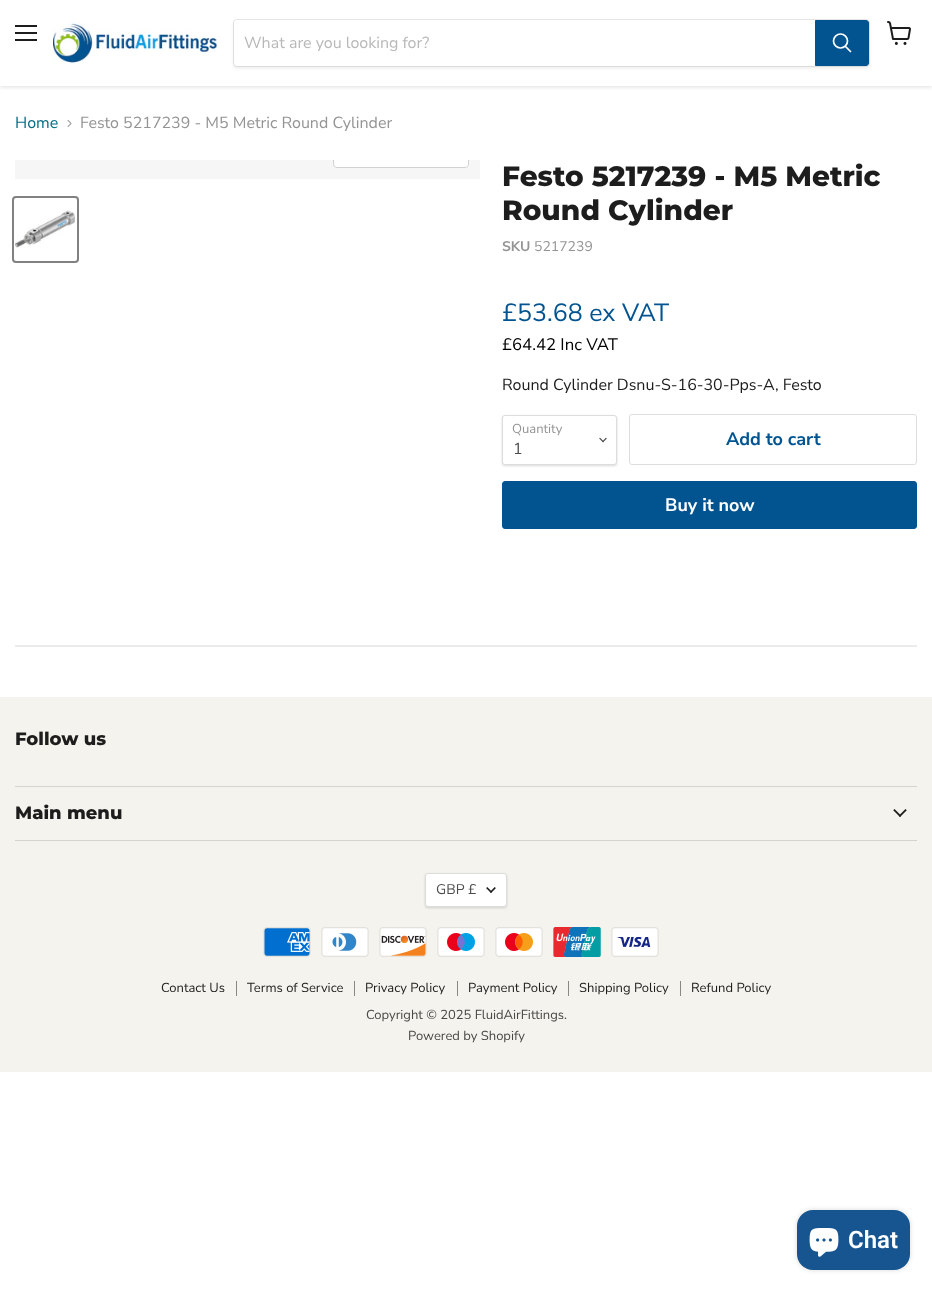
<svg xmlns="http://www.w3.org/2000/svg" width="932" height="1291">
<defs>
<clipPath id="clip1"><rect x="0" y="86" width="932" height="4"/></clipPath>
<clipPath id="clip2"><rect x="15" y="160" width="465" height="19"/></clipPath>
</defs>
<rect width="100%" height="100%" fill="#fff"/>
<g clip-path="url(#clip1)">
<rect y="1" width="932" height="86" fill="#80808040" filter="blur(2px)"/>
</g>
<rect x="15" y="25" width="22" height="2" fill="#1d1d1d"/>
<rect x="15" y="32" width="22" height="2" fill="#1d1d1d"/>
<rect x="15" y="39" width="22" height="2" fill="#1d1d1d"/>
<image x="887" y="21" width="24" height="24" href="media/1.png"/>
<image x="53" y="22" width="165" height="42" href="media/2.png"/>
<rect x="233" y="21" width="637" height="48" rx="4" fill="#8080801c" filter="blur(1.5px)"/>
<rect x="233.5" y="19.5" width="636" height="47" rx="3.5" fill="none" stroke="#80808033"/>
<path d="M237 20h578v46h-578c-1.5 0-3-1.5-3-3v-40c0-1.5 1.5-3 3-3z" fill="#fff"/>
<text x="244" y="48" style="font-family:Nunito Sans;font-size:16px;fill:#b8b8b8">What are you looking for?</text>
<path d="M815.5 20.5h50.5c1.5 0 2.5 1 2.5 2.5v40c0 1.5-1 2.5-2.5 2.5h-50.5z" fill="#025491" stroke="#025491"/>
<path d="M850.5 51.5l-5-5" fill="none" stroke="#fff" stroke-width="1.7" stroke-linecap="round"/>
<circle cx="840.5" cy="41" r="7" fill="none" stroke="#fff" stroke-width="1.7"/>
<text x="15" y="128" style="font-family:Nunito Sans;font-size:16px;fill:#046e82">Home</text>
<image x="67" y="120" width="5" height="7" href="media/3.png"/>
<text x="80" y="128" style="font-family:Nunito Sans;font-size:16px;fill:#949494">Festo 5217239 - M5 Metric Round Cylinder</text>
<rect x="15" y="160" width="465" height="19" fill="#f6f6f6"/>
<g clip-path="url(#clip2)">
<rect x="333.5" y="138.5" width="135" height="29" rx="3.5" fill="none" stroke="#d1d1d1"/>
</g>
<path d="M334 160h134v4c0 1.5-1.5 3-3 3h-128c-1.5 0-3-1.5-3-3z" fill="#ffffffe6"/>
<rect x="13" y="197" width="65" height="65" rx="3" fill="none" stroke="#818181" stroke-width="2"/>
<image x="15" y="210" width="60" height="38" href="media/4.png"/>
<text x="502" y="186" style="font-family:Montserrat;font-size:28px;font-weight:800;fill:#1d1d1d">Festo 5217239 - M5 Metric</text>
<text x="502" y="220" style="font-family:Montserrat;font-size:28px;font-weight:800;fill:#1d1d1d">Round Cylinder</text>
<text x="502" y="251" style="font-family:Nunito Sans;font-size:14px;font-weight:bold;fill:#949494">SKU</text>
<text x="534" y="251" style="font-family:Nunito Sans;font-size:14px;fill:#949494">5217239</text>
<text x="502" y="321" style="font-family:Nunito Sans;font-size:25px;fill:#025491">£53.68 ex VAT</text>
<text x="502" y="350" style="font-family:Nunito Sans;font-size:16.75px;fill:#000">£64.42 Inc VAT</text>
<text x="502" y="390" style="font-family:Nunito Sans;font-size:16px;fill:#1d1d1d">Round Cylinder Dsnu-S-16-30-Pps-A, Festo</text>
<rect x="502" y="416" width="115" height="50" rx="3" fill="#00000026" filter="blur(1px)"/>
<rect x="502.5" y="415.5" width="114" height="49" rx="2.5" fill="#fff" stroke="#ddd"/>
<text x="512" y="433" style="font-family:Nunito Sans;font-size:13px;fill:#949494">Quantity</text>
<image x="599" y="437" width="8" height="6" href="media/5.png"/>
<text x="513" y="454" style="font-family:Nunito Sans;font-size:16px;fill:#4d4d4d">1</text>
<rect x="629.5" y="414.5" width="287" height="50" rx="2.5" fill="none" stroke="#ddd"/>
<text x="726" y="445" style="font-family:Nunito Sans;font-size:18px;font-weight:bold;fill:#025491">Add to cart</text>
<rect x="502.5" y="481.5" width="414" height="47" rx="2.5" fill="#025491" stroke="#025491"/>
<text x="665" y="511" style="font-family:Nunito Sans;font-size:18px;font-weight:bold;fill:#fff">Buy it now</text>
<rect x="15" y="645" width="902" height="2" fill="#ebebeb"/>
<rect y="697" width="932" height="375" fill="#f5f3ed"/>
<rect x="15" y="786" width="902" height="1" fill="#d5d3ce"/>
<text x="15" y="745" style="font-family:Montserrat;font-size:18px;font-weight:800;fill:#1d1d1d">Follow us</text>
<rect x="15" y="840" width="902" height="1" fill="#d5d3ce"/>
<text x="15" y="819" style="font-family:Montserrat;font-size:18px;font-weight:800;fill:#1d1d1d">Main menu</text>
<image x="893" y="809" width="14" height="8" href="media/6.png"/>
<rect x="425" y="874" width="82" height="34" rx="3" fill="#00000026" filter="blur(1px)"/>
<rect x="425.5" y="873.5" width="81" height="33" rx="2.5" fill="#fff" stroke="#ddd"/>
<text x="436" y="894" style="font-family:Nunito Sans;font-size:14px;fill:#4d4d4d">GBP £</text>
<image x="486" y="887" width="10" height="6" href="media/7.png"/>
<image x="263" y="927" width="48" height="30" href="media/8.png"/>
<image x="321" y="927" width="48" height="30" href="media/9.png"/>
<image x="379" y="927" width="48" height="30" href="media/10.png"/>
<image x="437" y="927" width="48" height="30" href="media/11.png"/>
<image x="495" y="927" width="48" height="30" href="media/12.png"/>
<image x="553" y="927" width="48" height="30" href="media/13.png"/>
<image x="611" y="927" width="48" height="30" href="media/14.png"/>
<rect x="236" y="981" width="1" height="15" fill="#898885"/>
<text x="161" y="992" style="font-family:Nunito Sans;font-size:13px;fill:#1d1d1d">Contact Us</text>
<rect x="354" y="981" width="1" height="15" fill="#898885"/>
<text x="247" y="992" style="font-family:Nunito Sans;font-size:13px;fill:#1d1d1d">Terms of Service</text>
<rect x="457" y="981" width="1" height="15" fill="#898885"/>
<text x="365" y="992" style="font-family:Nunito Sans;font-size:13px;fill:#1d1d1d">Privacy Policy</text>
<rect x="568" y="981" width="1" height="15" fill="#898885"/>
<text x="468" y="992" style="font-family:Nunito Sans;font-size:13px;fill:#1d1d1d">Payment Policy</text>
<rect x="680" y="981" width="1" height="15" fill="#898885"/>
<text x="579" y="992" style="font-family:Nunito Sans;font-size:13px;fill:#1d1d1d">Shipping Policy</text>
<text x="691" y="992" style="font-family:Nunito Sans;font-size:13px;fill:#1d1d1d">Refund Policy</text>
<text x="366" y="1019" style="font-family:Nunito Sans;font-size:13px;fill:#484847">Copyright © 2025 FluidAirFittings.</text>
<text x="408" y="1040" style="font-family:Nunito Sans;font-size:13px;fill:#484847">Powered by Shopify</text>
<rect x="797" y="1210" width="113" height="60" rx="16" fill="#00000026" filter="blur(2.5px)"/>
<rect x="797" y="1210" width="113" height="60" rx="16" fill="#175591"/>
<image x="809" y="1228" width="30" height="29" href="media/15.png"/>
<text x="848" y="1248" style="font-family:Roboto;font-size:24px;font-weight:600;fill:#fff">Chat</text>
</svg>
